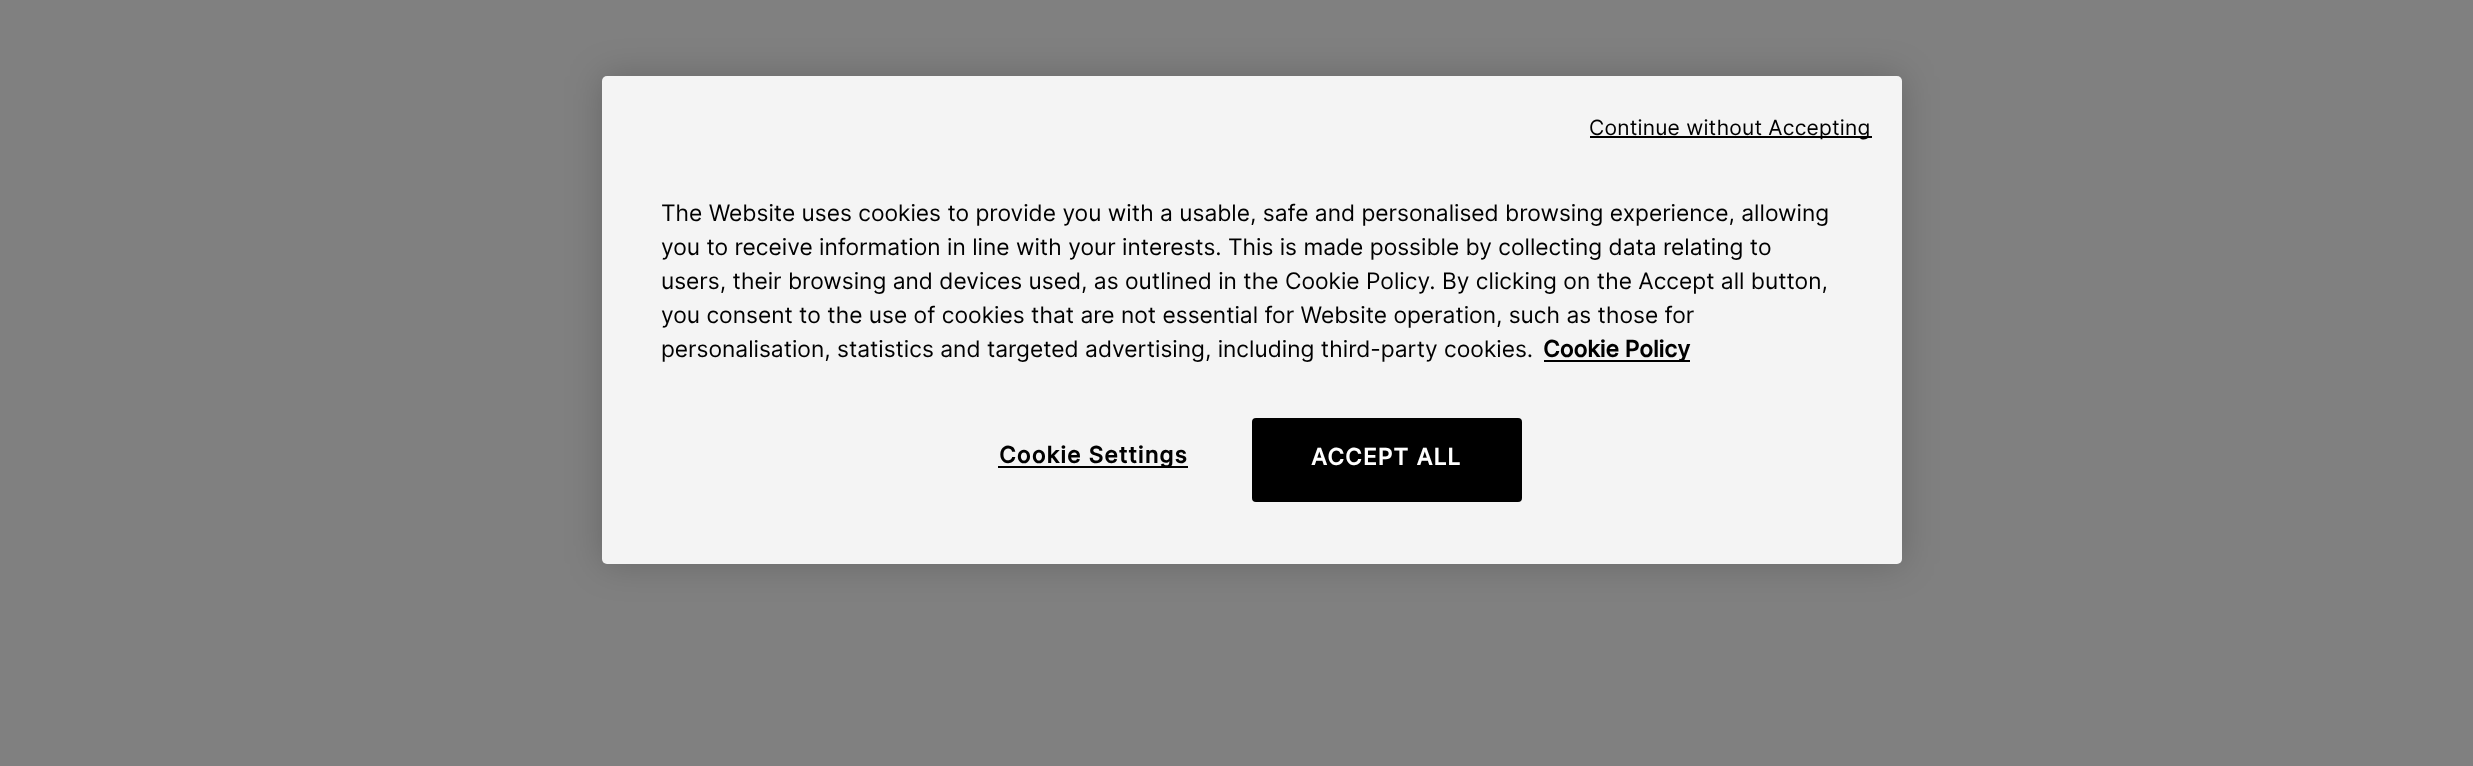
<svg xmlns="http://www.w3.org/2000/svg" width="2473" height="766">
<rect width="100%" height="100%" fill="#808080"/>
<rect x="602" y="76" width="1300" height="488" rx="5" fill="#00000033" filter="blur(18px)"/>
<rect x="602" y="76" width="1300" height="488" rx="5" fill="#f4f4f4"/>
<rect x="1590" y="136" width="282" height="2" fill="#000"/>
<text x="1589" y="135" style="font-family:Inter;font-size:21px;letter-spacing:0.2px;fill:#000">Continue without Accepting</text>
<text x="661" y="221" style="font-family:Inter;font-size:22.75px;fill:#000">The Website uses cookies to provide you with a usable, safe and personalised browsing experience, allowing</text>
<text x="661" y="255" style="font-family:Inter;font-size:22.75px;fill:#000">you to receive information in line with your interests. This is made possible by collecting data relating to</text>
<text x="661" y="289" style="font-family:Inter;font-size:22.75px;fill:#000">users, their browsing and devices used, as outlined in the Cookie Policy. By clicking on the Accept all button,</text>
<text x="661" y="323" style="font-family:Inter;font-size:22.75px;fill:#000">you consent to the use of cookies that are not essential for Website operation, such as those for</text>
<text x="661" y="357" style="font-family:Inter;font-size:22.75px;fill:#000">personalisation, statistics and targeted advertising, including third-party cookies.</text>
<rect x="1544" y="360" width="146" height="2" fill="#000"/>
<text x="1543" y="357" style="font-family:Inter;font-size:22.75px;font-weight:bold;fill:#000">Cookie Policy</text>
<rect x="998" y="466" width="190" height="2" fill="#000"/>
<text x="999" y="463" style="font-family:Inter;font-size:22.75px;font-weight:bold;letter-spacing:1.1px;fill:#000">Cookie Settings</text>
<rect x="1253" y="419" width="268" height="82" rx="3" fill="#000" stroke="#000" stroke-width="2"/>
<text x="1311" y="465" style="font-family:Inter;font-size:22.75px;font-weight:bold;letter-spacing:1.1px;fill:#fff">ACCEPT ALL</text>
</svg>
